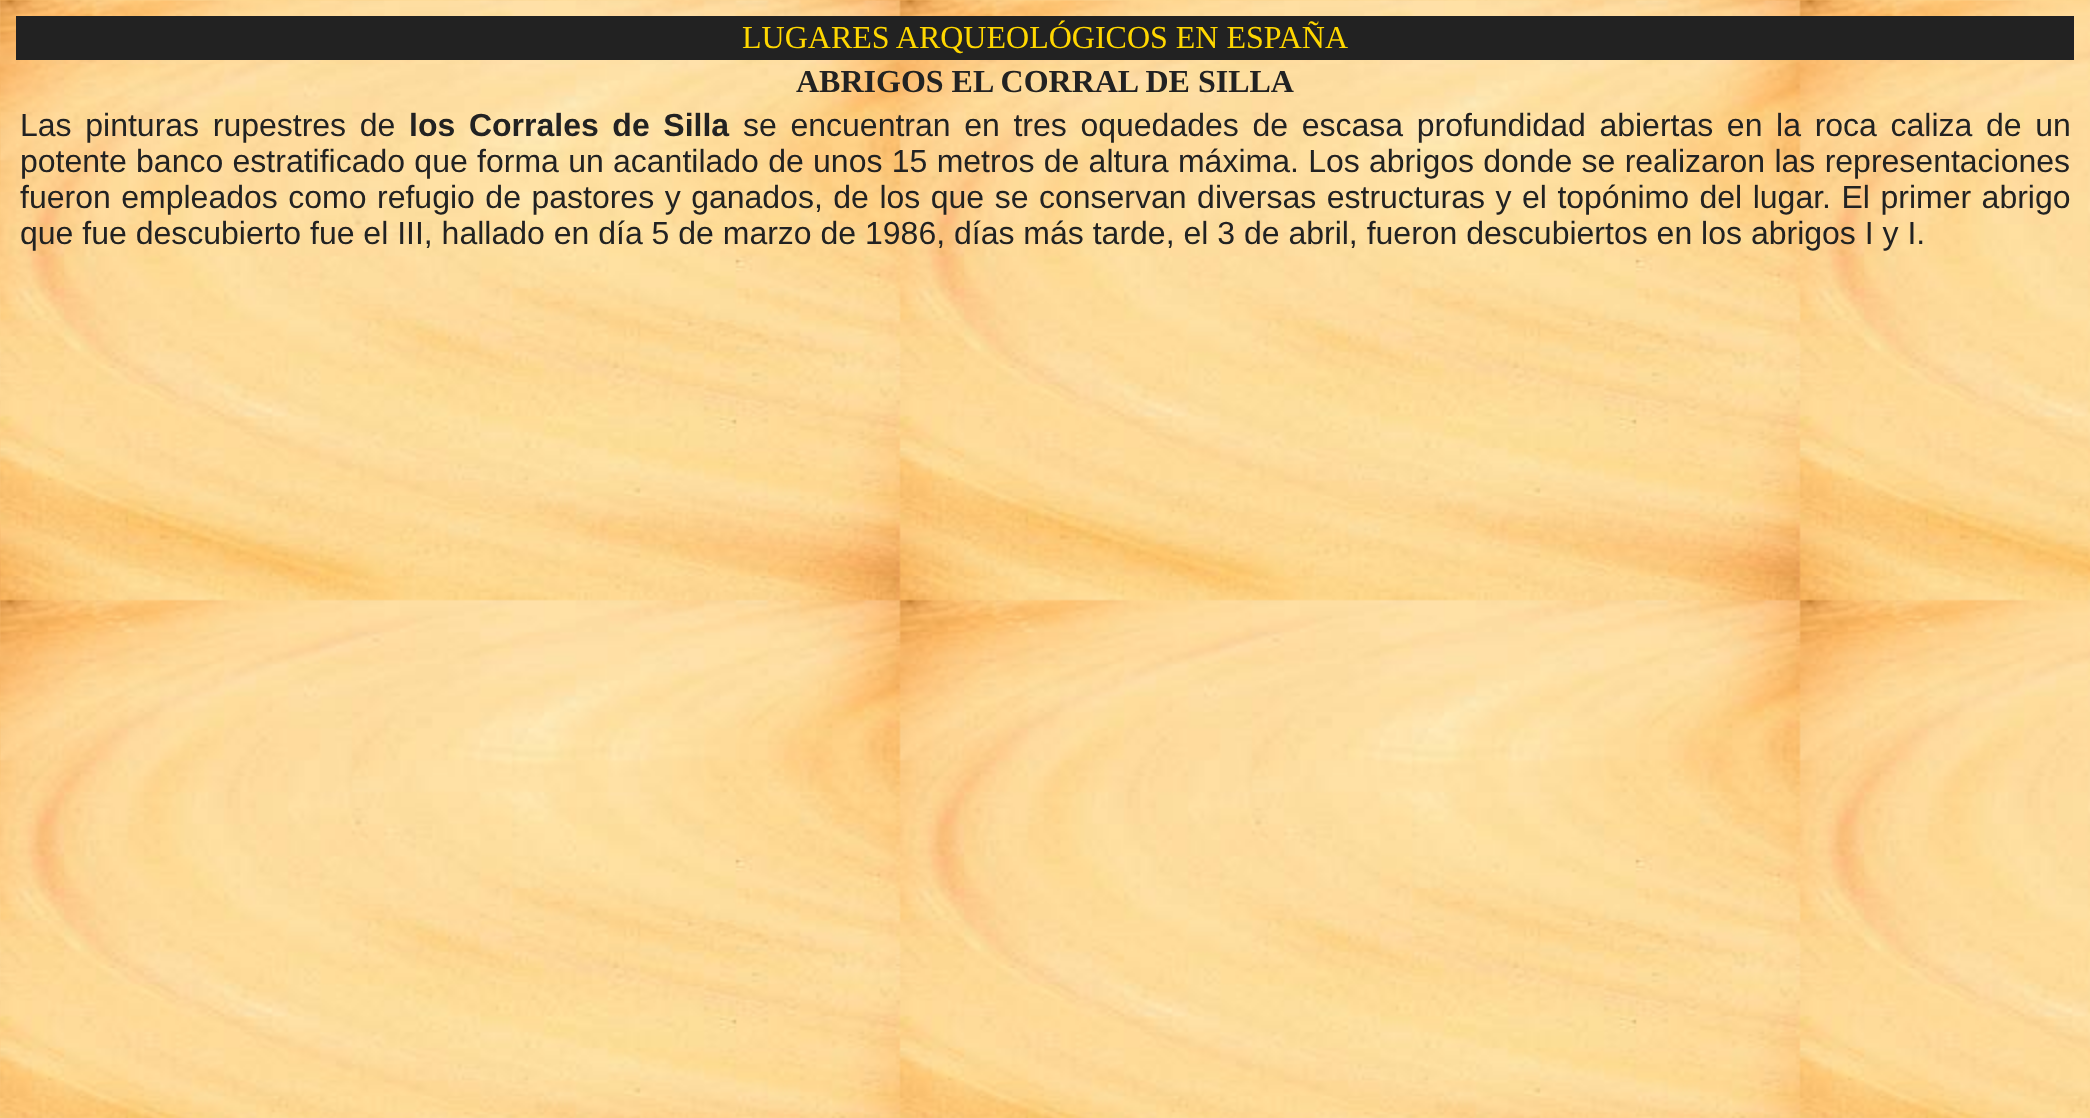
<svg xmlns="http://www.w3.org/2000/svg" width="2090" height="1118">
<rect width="100%" height="100%" fill="#fff"/>
<image x="0" y="0" width="2090" height="1118" href="media/1.png"/>
<rect x="16" y="16" width="2058" height="44" fill="#222"/>
<text x="742" y="48" style="font-family:Liberation Serif;font-size:32px;fill:#ffd700">LUGARES ARQUEOLÓGICOS EN ESPAÑA</text>
<text x="796" y="92" style="font-family:Liberation Serif;font-size:32px;font-weight:bold;fill:#222">ABRIGOS EL CORRAL DE SILLA</text>
<text x="20" y="136" word-spacing="4.75" style="font-family:Liberation Sans;font-size:32px;fill:#222">Las pinturas rupestres de</text>
<text x="409" y="136" word-spacing="4.75" style="font-family:Liberation Sans;font-size:32px;font-weight:bold;fill:#222">los Corrales de Silla</text>
<text x="743" y="136" word-spacing="4.75" style="font-family:Liberation Sans;font-size:32px;fill:#222">se encuentran en tres oquedades de escasa profundidad abiertas en la roca caliza de un</text>
<text x="20" y="172" word-spacing="0.4" style="font-family:Liberation Sans;font-size:32px;fill:#222">potente banco estratificado que forma un acantilado de unos 15 metros de altura máxima. Los abrigos donde se realizaron las representaciones</text>
<text x="20" y="208" word-spacing="1.6" style="font-family:Liberation Sans;font-size:32px;fill:#222">fueron empleados como refugio de pastores y ganados, de los que se conservan diversas estructuras y el topónimo del lugar. El primer abrigo</text>
<text x="20" y="244" style="font-family:Liberation Sans;font-size:32px;fill:#222">que fue descubierto fue el III, hallado en día 5 de marzo de 1986, días más tarde, el 3 de abril, fueron descubiertos en los abrigos I y I.</text>
</svg>
